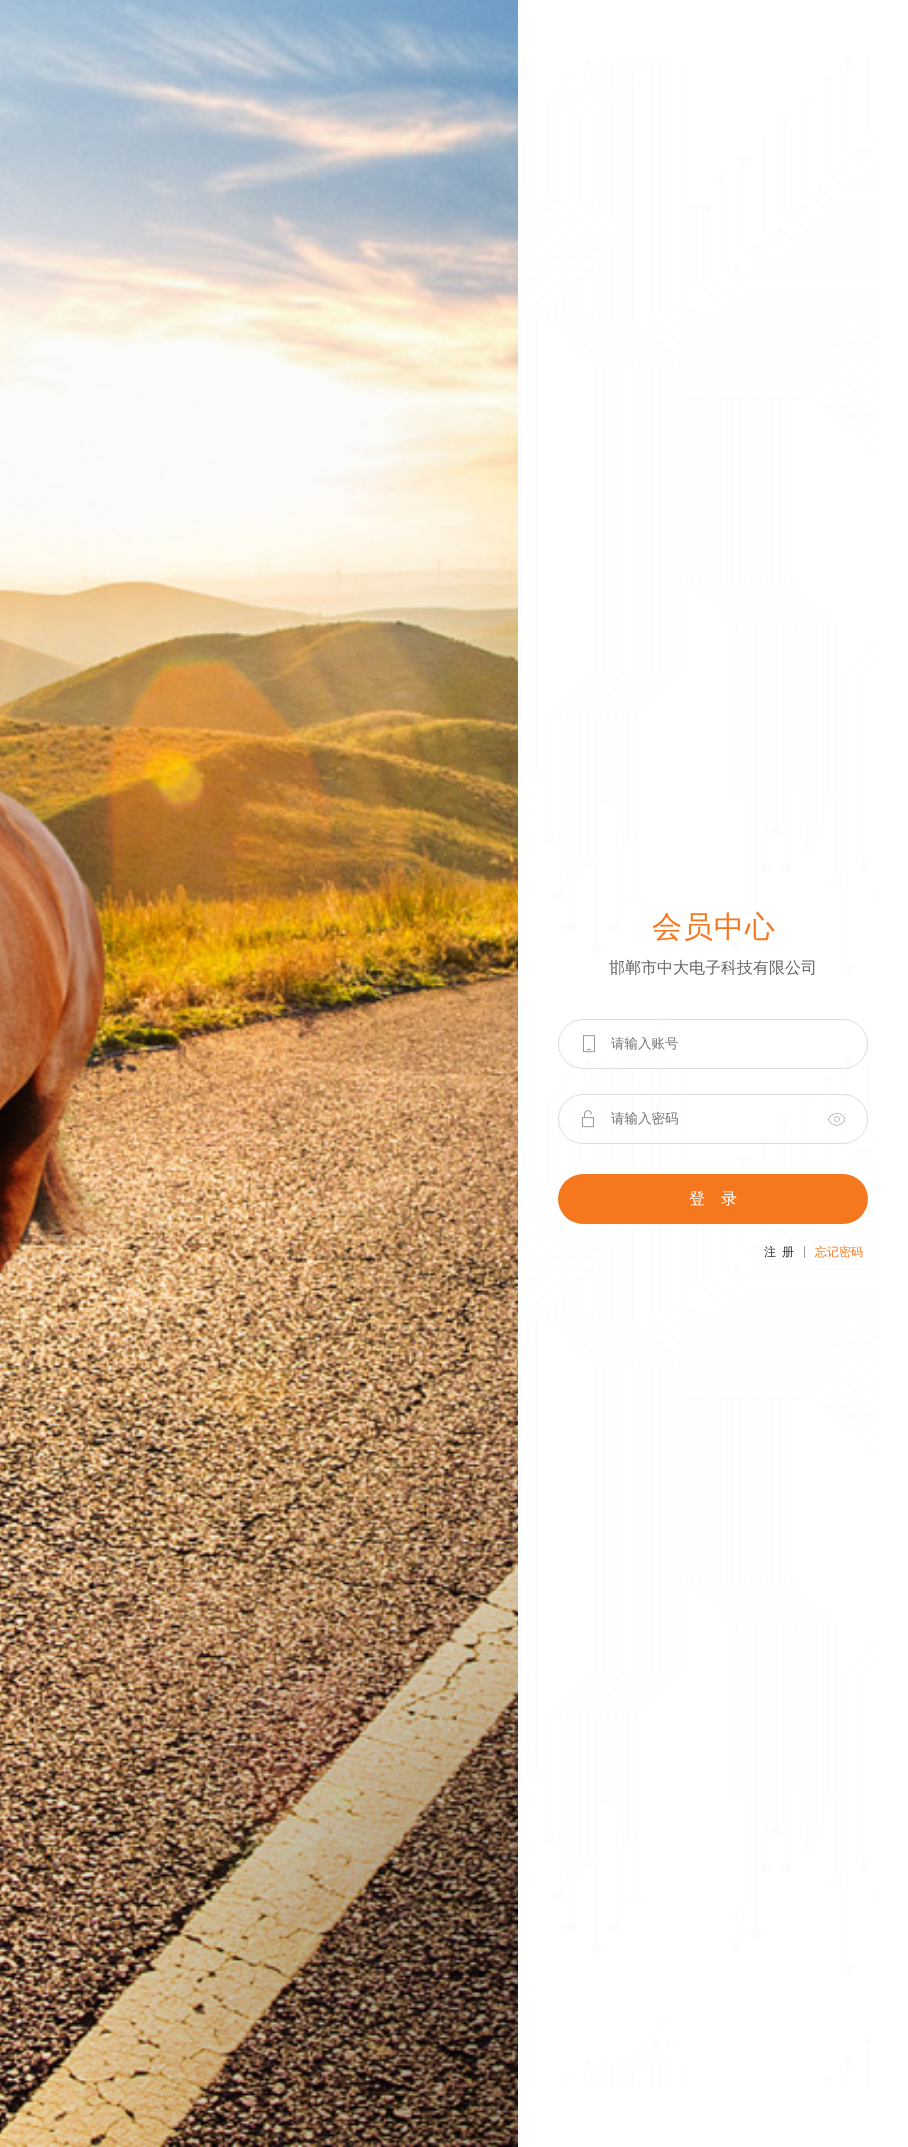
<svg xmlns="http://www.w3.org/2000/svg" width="908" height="2147">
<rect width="100%" height="100%" fill="#fff"/>
<image x="0" y="0" width="518" height="2147" href="media/1.png"/>
<image x="518" y="56" width="361" height="2033" href="media/2.png"/>
<text x="652" y="937" style="font-family:WenQuanYi Zen Hei;font-size:30px;font-weight:500;letter-spacing:1px;fill:#f5781f">会员中心</text>
<text x="609" y="973" style="font-family:WenQuanYi Zen Hei;font-size:16px;font-weight:500;fill:#666">邯郸市中大电子科技有限公司</text>
<rect x="558.5" y="1019.5" width="309" height="49" rx="24.5" fill="none" stroke="#ddd"/>
<image x="583" y="1035" width="12" height="18" href="media/3.png"/>
<text x="611" y="1048" style="font-family:WenQuanYi Zen Hei;font-size:13.5px;font-weight:500;fill:#757575">请输入账号</text>
<rect x="558.5" y="1094.5" width="309" height="49" rx="24.5" fill="none" stroke="#ddd"/>
<image x="582" y="1110" width="12" height="18" href="media/4.png"/>
<text x="611" y="1123" style="font-family:WenQuanYi Zen Hei;font-size:13.5px;font-weight:500;fill:#757575">请输入密码</text>
<image x="828" y="1113" width="18" height="13" href="media/5.png"/>
<rect x="558" y="1174" width="310" height="50" rx="25" fill="#f5781f"/>
<text x="689" y="1204" style="font-family:WenQuanYi Zen Hei;font-size:16px;font-weight:500;fill:#fff">登</text>
<text x="721" y="1204" style="font-family:WenQuanYi Zen Hei;font-size:16px;font-weight:500;fill:#fff">录</text>
<text x="764" y="1256" style="font-family:WenQuanYi Zen Hei;font-size:12px;font-weight:500;fill:#333">注</text>
<text x="782" y="1256" style="font-family:WenQuanYi Zen Hei;font-size:12px;font-weight:500;fill:#333">册</text>
<rect x="804" y="1246" width="1" height="12" fill="#999"/>
<text x="815" y="1256" style="font-family:WenQuanYi Zen Hei;font-size:12px;font-weight:500;fill:#f5781f">忘记密码</text>
</svg>
